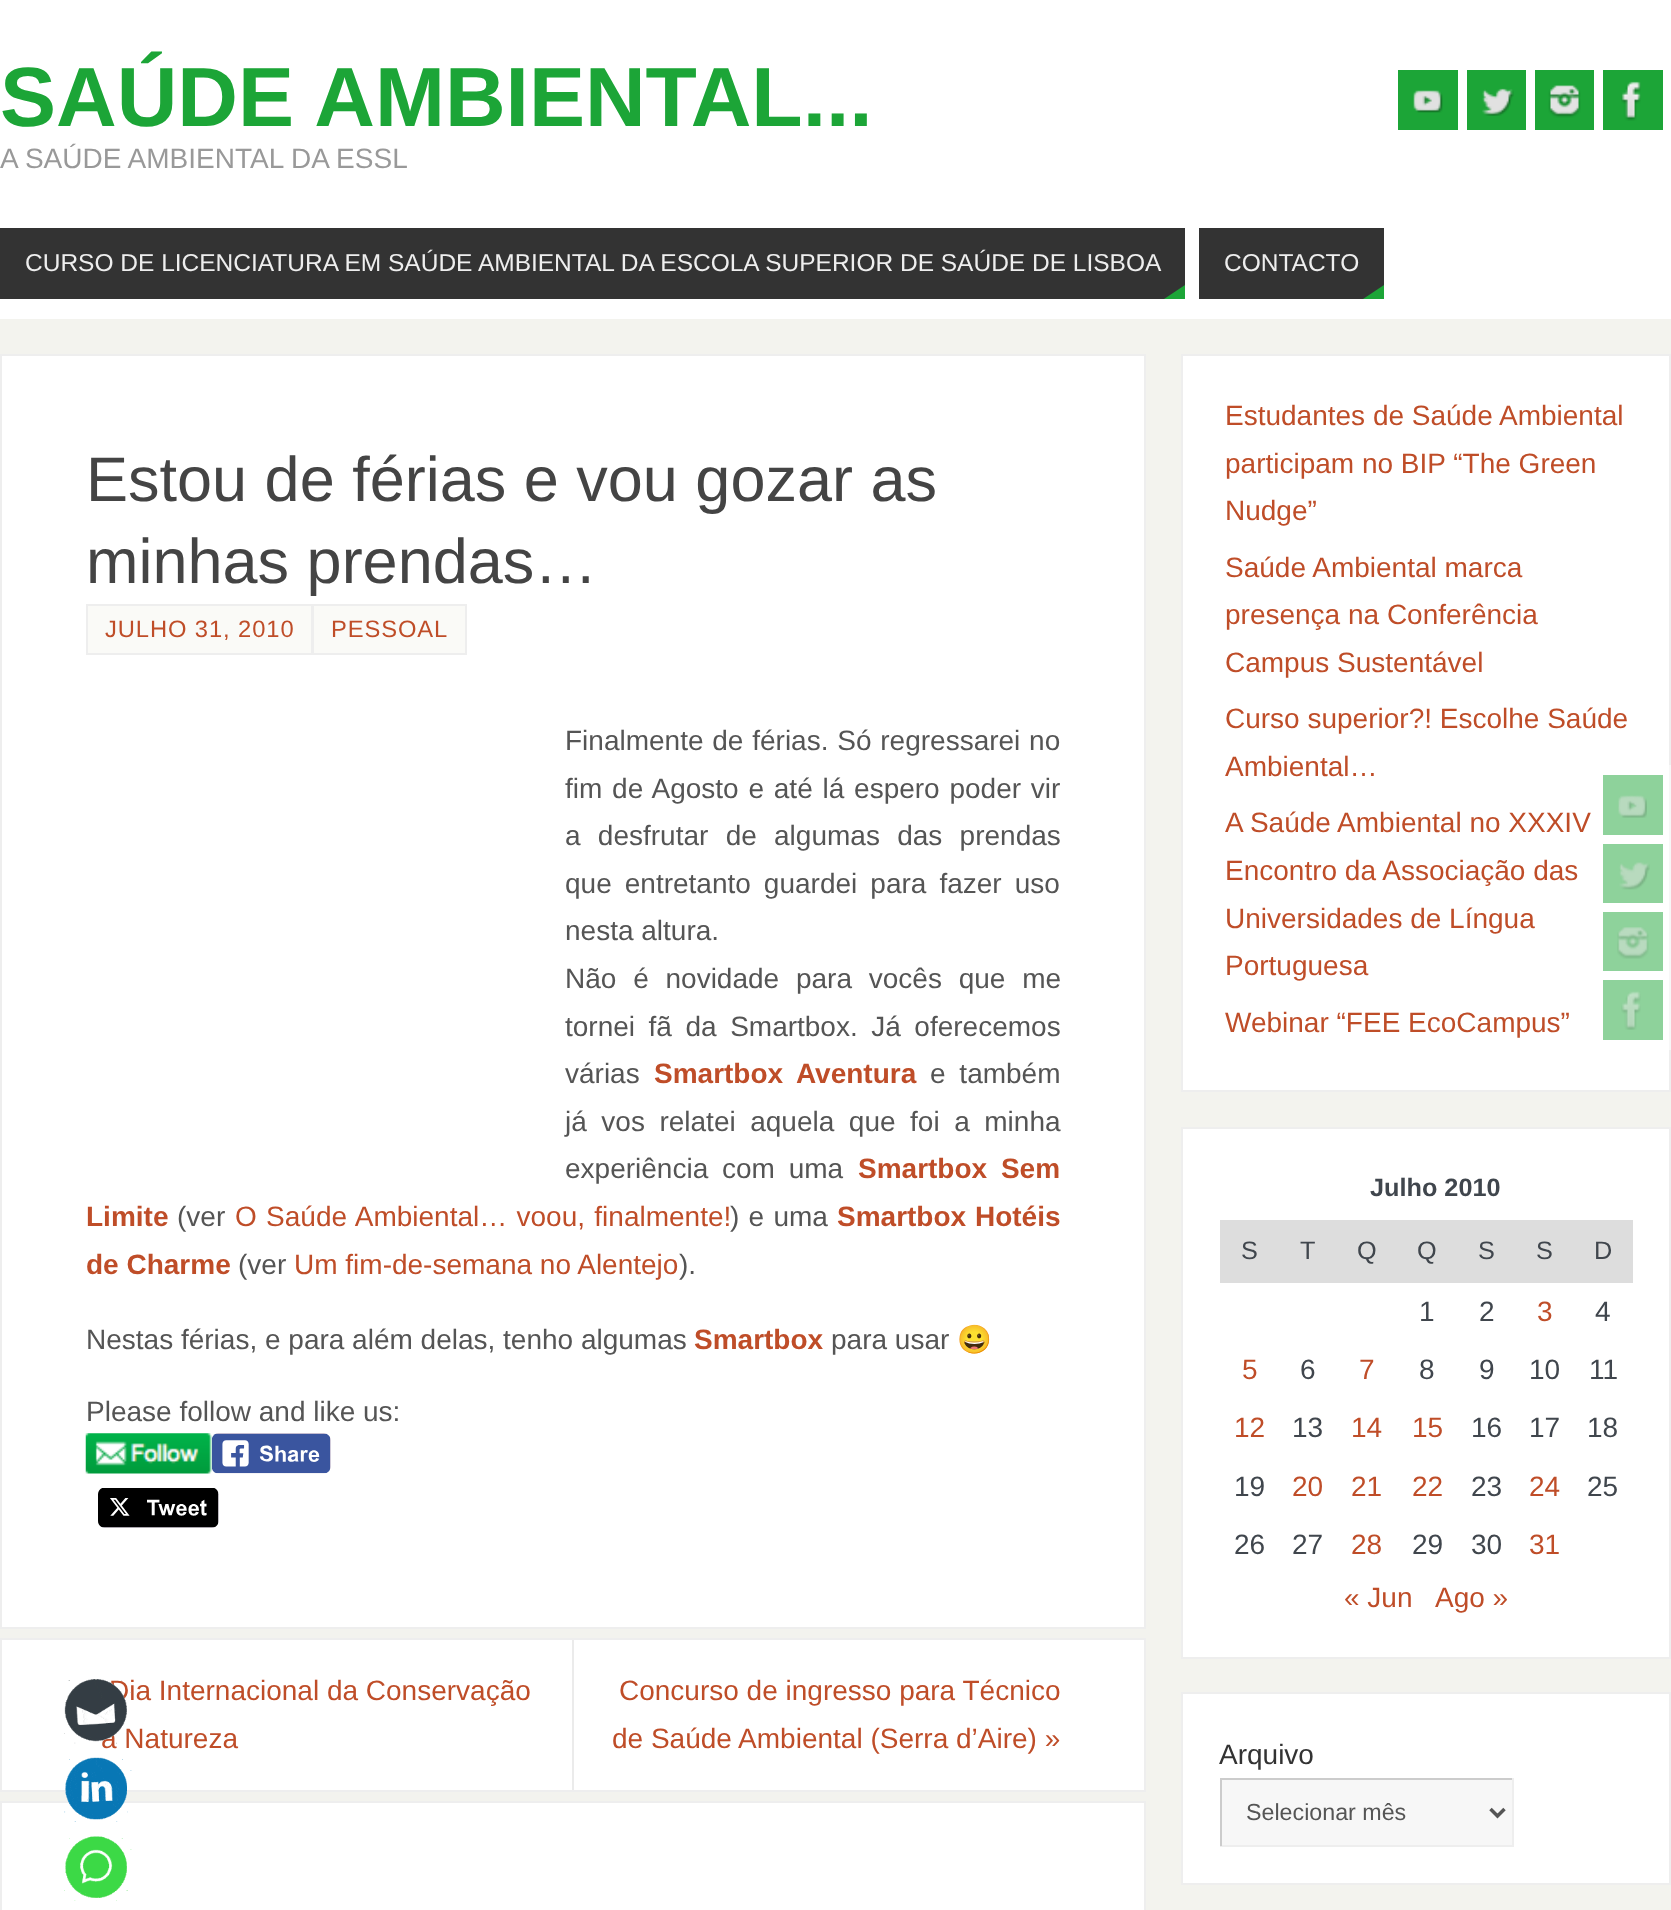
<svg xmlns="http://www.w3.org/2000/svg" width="1671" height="1910">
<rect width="100%" height="100%" fill="#f3f3ee"/>
<rect width="1671" height="319" fill="#fff"/>
<text x="0" y="126" style="font-family:Liberation Sans;font-size:84px;font-weight:bold;fill:#1ca537">SAÚDE AMBIENTAL...</text>
<text x="0" y="168" style="font-family:Liberation Sans;font-size:28px;fill:#999">A SAÚDE AMBIENTAL DA ESSL</text>
<rect x="1398" y="70" width="60" height="60" fill="#1ca537"/>
<image x="1413" y="90" width="30" height="23" href="media/1.png"/>
<rect x="1467" y="70" width="59" height="60" fill="#1ca537"/>
<image x="1482" y="88" width="32" height="28" href="media/2.png"/>
<rect x="1535" y="70" width="59" height="60" fill="#1ca537"/>
<image x="1548" y="85" width="33" height="33" href="media/3.png"/>
<rect x="1603" y="70" width="60" height="60" fill="#1ca537"/>
<image x="1621" y="81" width="20" height="40" href="media/4.png"/>
<rect y="228" width="1185" height="71" fill="#333"/>
<text x="25" y="271" style="font-family:Liberation Sans;font-size:24.5px;fill:#eee">CURSO DE LICENCIATURA EM SAÚDE AMBIENTAL DA ESCOLA SUPERIOR DE SAÚDE DE LISBOA</text>
<path d="M1185 299h-21l21-14z" fill="#1ca537"/>
<rect x="1199" y="228" width="185" height="71" fill="#333"/>
<text x="1224" y="271" style="font-family:Liberation Sans;font-size:24.5px;fill:#eee">CONTACTO</text>
<path d="M1384 299h-21l21-14z" fill="#1ca537"/>
<rect x="1" y="355" width="1144" height="1273" fill="#fff" stroke="#eee" stroke-width="2"/>
<text x="86" y="501" style="font-family:Liberation Sans;font-size:63px;fill:#444">Estou de férias e vou gozar as</text>
<text x="86" y="583" style="font-family:Liberation Sans;font-size:63px;fill:#444">minhas prendas…</text>
<rect x="87" y="605" width="225" height="49" fill="#fafaf7" stroke="#eee" stroke-width="2"/>
<text x="105" y="637" style="font-family:Liberation Sans;font-size:23.75px;letter-spacing:0.9px;fill:#bf4d28">JULHO 31, 2010</text>
<rect x="313" y="605" width="153" height="49" fill="#fafaf7" stroke="#eee" stroke-width="2"/>
<text x="331" y="637" style="font-family:Liberation Sans;font-size:23.75px;letter-spacing:0.9px;fill:#bf4d28">PESSOAL</text>
<text x="565" y="750" word-spacing="1" style="font-family:Liberation Sans;font-size:28px;fill:#555">Finalmente de férias. Só regressarei no</text>
<text x="565" y="798" word-spacing="2" style="font-family:Liberation Sans;font-size:28px;fill:#555">fim de Agosto e até lá espero poder vir</text>
<text x="565" y="845" word-spacing="9.5" style="font-family:Liberation Sans;font-size:28px;fill:#555">a desfrutar de algumas das prendas</text>
<text x="565" y="893" word-spacing="5.25" style="font-family:Liberation Sans;font-size:28px;fill:#555">que entretanto guardei para fazer uso</text>
<text x="565" y="940" style="font-family:Liberation Sans;font-size:28px;fill:#555">nesta altura.</text>
<text x="565" y="988" word-spacing="9" style="font-family:Liberation Sans;font-size:28px;fill:#555">Não é novidade para vocês que me</text>
<text x="565" y="1036" word-spacing="5.75" style="font-family:Liberation Sans;font-size:28px;fill:#555">tornei fã da Smartbox. Já oferecemos</text>
<text x="565" y="1083" style="font-family:Liberation Sans;font-size:28px;fill:#555">várias</text>
<text x="654" y="1083" word-spacing="6" style="font-family:Liberation Sans;font-size:28px;font-weight:bold;fill:#bf4d28">Smartbox Aventura</text>
<text x="930" y="1083" word-spacing="6" style="font-family:Liberation Sans;font-size:28px;fill:#555">e também</text>
<text x="565" y="1131" word-spacing="6.75" style="font-family:Liberation Sans;font-size:28px;fill:#555">já vos relatei aquela que foi a minha</text>
<text x="565" y="1178" word-spacing="6" style="font-family:Liberation Sans;font-size:28px;fill:#555">experiência com uma</text>
<text x="858" y="1178" word-spacing="6" style="font-family:Liberation Sans;font-size:28px;font-weight:bold;fill:#bf4d28">Smartbox Sem</text>
<text x="86" y="1226" style="font-family:Liberation Sans;font-size:28px;font-weight:bold;fill:#bf4d28">Limite</text>
<text x="177" y="1226" style="font-family:Liberation Sans;font-size:28px;fill:#555">(ver</text>
<text x="235" y="1226" word-spacing="1.5" style="font-family:Liberation Sans;font-size:28px;fill:#bf4d28">O Saúde Ambiental… voou, finalmente!</text>
<text x="730" y="1226" word-spacing="1.5" style="font-family:Liberation Sans;font-size:28px;fill:#555">) e uma</text>
<text x="837" y="1226" word-spacing="1" style="font-family:Liberation Sans;font-size:28px;font-weight:bold;fill:#bf4d28">Smartbox Hotéis</text>
<text x="86" y="1274" style="font-family:Liberation Sans;font-size:28px;font-weight:bold;fill:#bf4d28">de Charme</text>
<text x="238" y="1274" style="font-family:Liberation Sans;font-size:28px;fill:#555">(ver</text>
<text x="294" y="1274" style="font-family:Liberation Sans;font-size:28px;fill:#bf4d28">Um fim-de-semana no Alentejo</text>
<text x="679" y="1274" style="font-family:Liberation Sans;font-size:28px;fill:#555">).</text>
<text x="86" y="1349" style="font-family:Liberation Sans;font-size:28px;fill:#555">Nestas férias, e para além delas, tenho algumas</text>
<text x="694" y="1349" style="font-family:Liberation Sans;font-size:28px;font-weight:bold;fill:#bf4d28">Smartbox</text>
<text x="831" y="1349" style="font-family:Liberation Sans;font-size:28px;fill:#555">para usar</text>
<text x="957" y="1349" style="font-family:Noto Color Emoji;font-size:28px;fill:#555">😀</text>
<text x="86" y="1421" style="font-family:Liberation Sans;font-size:28px;fill:#555">Please follow and like us:</text>
<image x="85" y="1433" width="127" height="41" href="media/5.png"/>
<image x="212" y="1433" width="119" height="41" href="media/6.png"/>
<image x="98" y="1488" width="121" height="40" href="media/7.png"/>
<rect x="1" y="1639" width="1144" height="152" fill="#fff" stroke="#eee" stroke-width="2"/>
<rect x="572" y="1640" width="2" height="150" fill="#ebebeb"/>
<text x="109" y="1700" style="font-family:Liberation Sans;font-size:28px;fill:#bf4d28">Dia Internacional da Conservação</text>
<text x="101" y="1748" style="font-family:Liberation Sans;font-size:28px;fill:#bf4d28">a Natureza</text>
<text x="619" y="1700" style="font-family:Liberation Sans;font-size:28px;fill:#bf4d28">Concurso de ingresso para Técnico</text>
<text x="612" y="1748" style="font-family:Liberation Sans;font-size:28px;fill:#bf4d28">de Saúde Ambiental (Serra d’Aire) »</text>
<rect x="1" y="1802" width="1144" height="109" fill="#fff" stroke="#eee" stroke-width="2"/>
<rect x="1182" y="355" width="488" height="736" fill="#fff" stroke="#eee" stroke-width="2"/>
<text x="1225" y="425" style="font-family:Liberation Sans;font-size:28px;fill:#bf4d28">Estudantes de Saúde Ambiental</text>
<text x="1225" y="473" style="font-family:Liberation Sans;font-size:28px;fill:#bf4d28">participam no BIP “The Green</text>
<text x="1225" y="520" style="font-family:Liberation Sans;font-size:28px;fill:#bf4d28">Nudge”</text>
<text x="1225" y="577" style="font-family:Liberation Sans;font-size:28px;fill:#bf4d28">Saúde Ambiental marca</text>
<text x="1225" y="624" style="font-family:Liberation Sans;font-size:28px;fill:#bf4d28">presença na Conferência</text>
<text x="1225" y="672" style="font-family:Liberation Sans;font-size:28px;fill:#bf4d28">Campus Sustentável</text>
<text x="1225" y="728" style="font-family:Liberation Sans;font-size:28px;fill:#bf4d28">Curso superior?! Escolhe Saúde</text>
<text x="1225" y="776" style="font-family:Liberation Sans;font-size:28px;fill:#bf4d28">Ambiental…</text>
<text x="1225" y="832" style="font-family:Liberation Sans;font-size:28px;fill:#bf4d28">A Saúde Ambiental no XXXIV</text>
<text x="1225" y="880" style="font-family:Liberation Sans;font-size:28px;fill:#bf4d28">Encontro da Associação das</text>
<text x="1225" y="928" style="font-family:Liberation Sans;font-size:28px;fill:#bf4d28">Universidades de Língua</text>
<text x="1225" y="975" style="font-family:Liberation Sans;font-size:28px;fill:#bf4d28">Portuguesa</text>
<text x="1225" y="1032" style="font-family:Liberation Sans;font-size:28px;fill:#bf4d28">Webinar “FEE EcoCampus”</text>
<rect x="1182" y="1128" width="488" height="530" fill="#fff" stroke="#eee" stroke-width="2"/>
<text x="1370" y="1196" style="font-family:Liberation Sans;font-size:25.25px;font-weight:bold;fill:#40464d">Julho 2010</text>
<rect x="1220" y="1220" width="413" height="63" fill="#ddd"/>
<text x="1241" y="1259" style="font-family:Liberation Sans;font-size:25.25px;fill:#40464d">S</text>
<text x="1300" y="1259" style="font-family:Liberation Sans;font-size:25.25px;fill:#40464d">T</text>
<text x="1357" y="1259" style="font-family:Liberation Sans;font-size:25.25px;fill:#40464d">Q</text>
<text x="1417" y="1259" style="font-family:Liberation Sans;font-size:25.25px;fill:#40464d">Q</text>
<text x="1478" y="1259" style="font-family:Liberation Sans;font-size:25.25px;fill:#40464d">S</text>
<text x="1536" y="1259" style="font-family:Liberation Sans;font-size:25.25px;fill:#40464d">S</text>
<text x="1594" y="1259" style="font-family:Liberation Sans;font-size:25.25px;fill:#40464d">D</text>
<text x="1419" y="1321" style="font-family:Liberation Sans;font-size:28px;fill:#40464d">1</text>
<text x="1479" y="1321" style="font-family:Liberation Sans;font-size:28px;fill:#40464d">2</text>
<text x="1537" y="1321" style="font-family:Liberation Sans;font-size:28px;fill:#bf4d28">3</text>
<text x="1595" y="1321" style="font-family:Liberation Sans;font-size:28px;fill:#40464d">4</text>
<text x="1242" y="1379" style="font-family:Liberation Sans;font-size:28px;fill:#bf4d28">5</text>
<text x="1300" y="1379" style="font-family:Liberation Sans;font-size:28px;fill:#40464d">6</text>
<text x="1359" y="1379" style="font-family:Liberation Sans;font-size:28px;fill:#bf4d28">7</text>
<text x="1419" y="1379" style="font-family:Liberation Sans;font-size:28px;fill:#40464d">8</text>
<text x="1479" y="1379" style="font-family:Liberation Sans;font-size:28px;fill:#40464d">9</text>
<text x="1529" y="1379" style="font-family:Liberation Sans;font-size:28px;fill:#40464d">10</text>
<text x="1589" y="1379" style="font-family:Liberation Sans;font-size:28px;fill:#40464d">11</text>
<text x="1234" y="1437" style="font-family:Liberation Sans;font-size:28px;fill:#bf4d28">12</text>
<text x="1292" y="1437" style="font-family:Liberation Sans;font-size:28px;fill:#40464d">13</text>
<text x="1351" y="1437" style="font-family:Liberation Sans;font-size:28px;fill:#bf4d28">14</text>
<text x="1412" y="1437" style="font-family:Liberation Sans;font-size:28px;fill:#bf4d28">15</text>
<text x="1471" y="1437" style="font-family:Liberation Sans;font-size:28px;fill:#40464d">16</text>
<text x="1529" y="1437" style="font-family:Liberation Sans;font-size:28px;fill:#40464d">17</text>
<text x="1587" y="1437" style="font-family:Liberation Sans;font-size:28px;fill:#40464d">18</text>
<text x="1234" y="1496" style="font-family:Liberation Sans;font-size:28px;fill:#40464d">19</text>
<text x="1292" y="1496" style="font-family:Liberation Sans;font-size:28px;fill:#bf4d28">20</text>
<text x="1351" y="1496" style="font-family:Liberation Sans;font-size:28px;fill:#bf4d28">21</text>
<text x="1412" y="1496" style="font-family:Liberation Sans;font-size:28px;fill:#bf4d28">22</text>
<text x="1471" y="1496" style="font-family:Liberation Sans;font-size:28px;fill:#40464d">23</text>
<text x="1529" y="1496" style="font-family:Liberation Sans;font-size:28px;fill:#bf4d28">24</text>
<text x="1587" y="1496" style="font-family:Liberation Sans;font-size:28px;fill:#40464d">25</text>
<text x="1234" y="1554" style="font-family:Liberation Sans;font-size:28px;fill:#40464d">26</text>
<text x="1292" y="1554" style="font-family:Liberation Sans;font-size:28px;fill:#40464d">27</text>
<text x="1351" y="1554" style="font-family:Liberation Sans;font-size:28px;fill:#bf4d28">28</text>
<text x="1412" y="1554" style="font-family:Liberation Sans;font-size:28px;fill:#40464d">29</text>
<text x="1471" y="1554" style="font-family:Liberation Sans;font-size:28px;fill:#40464d">30</text>
<text x="1529" y="1554" style="font-family:Liberation Sans;font-size:28px;fill:#bf4d28">31</text>
<text x="1344" y="1607" style="font-family:Liberation Sans;font-size:28px;fill:#bf4d28">« Jun</text>
<text x="1435" y="1607" style="font-family:Liberation Sans;font-size:28px;fill:#bf4d28">Ago »</text>
<rect x="1182" y="1693" width="488" height="191" fill="#fff" stroke="#eee" stroke-width="2"/>
<text x="1219" y="1764" style="font-family:Liberation Sans;font-size:28px;fill:#333">Arquivo</text>
<rect x="1222" y="1780" width="290" height="65" fill="#f7f7f7"/>
<rect x="1220" y="1778" width="294" height="2" fill="#ccc"/>
<rect x="1512" y="1778" width="2" height="68" fill="#eee"/>
<rect x="1220" y="1845" width="294" height="2" fill="#eee"/>
<rect x="1220" y="1778" width="2" height="68" fill="#ccc"/>
<path d="M1490.5 1809l7 7l7-7" fill="none" stroke="#555" stroke-width="3.5"/>
<text x="1246" y="1820" style="font-family:Liberation Sans;font-size:23.25px;fill:#555">Selecionar mês</text>
<rect x="1669" y="765" width="2" height="285" fill="#ffffff80"/>
<rect x="1603" y="775" width="60" height="60" fill="#8ed29b"/>
<image x="1618" y="795" width="29" height="23" href="media/8.png"/>
<rect x="1603" y="844" width="60" height="59" fill="#8ed29b"/>
<image x="1619" y="862" width="31" height="28" href="media/9.png"/>
<rect x="1603" y="912" width="60" height="59" fill="#8ed29b"/>
<image x="1617" y="927" width="32" height="32" href="media/10.png"/>
<rect x="1603" y="980" width="60" height="60" fill="#8ed29b"/>
<image x="1621" y="991" width="20" height="39" href="media/11.png"/>
<image x="64" y="1679" width="68" height="65" href="media/12.png"/>
<image x="64" y="1757" width="68" height="65" href="media/13.png"/>
<image x="64" y="1836" width="68" height="65" href="media/14.png"/>
</svg>
